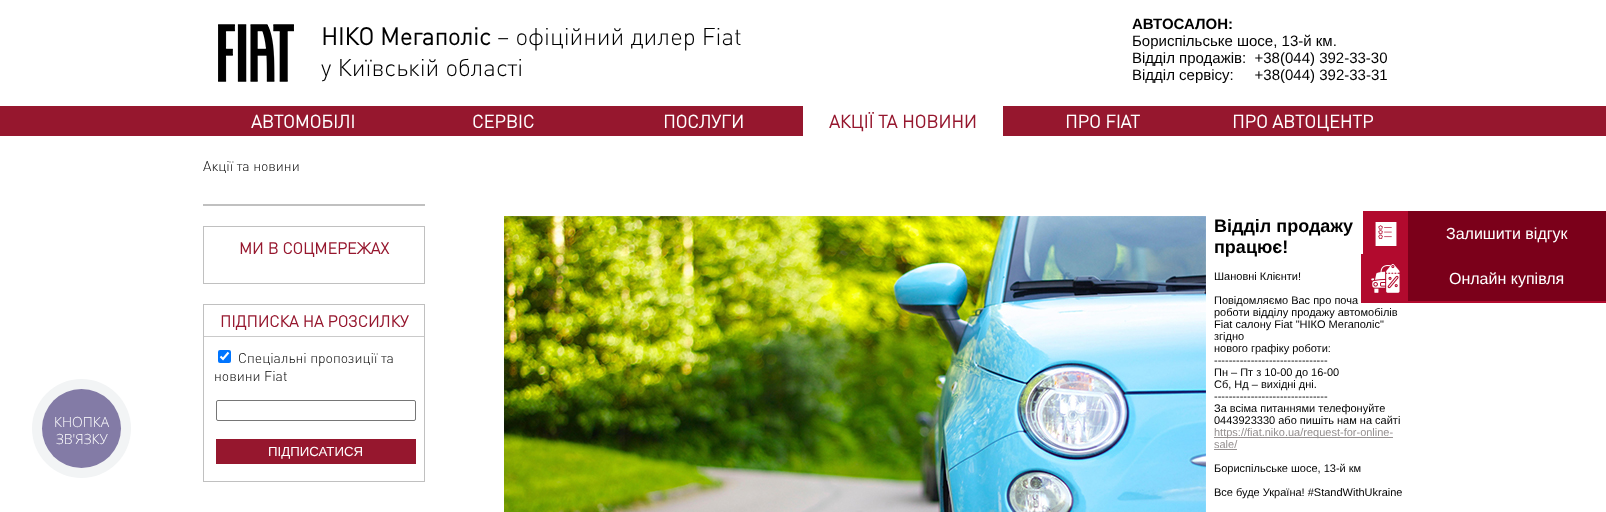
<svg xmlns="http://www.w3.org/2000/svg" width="1606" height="512">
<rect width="100%" height="100%" fill="#fff"/>
<image x="218" y="24" width="76" height="58" href="media/1.png"/>
<text x="321" y="45" style="font-family:DIN;font-size:24px;font-weight:bold;fill:#000">НІКО Мегаполіс</text>
<text x="497" y="45" style="font-family:DIN;font-size:24px;font-weight:300;fill:#000">– офіційний дилер Fiat</text>
<text x="321" y="76" style="font-family:DIN;font-size:24px;font-weight:300;fill:#000">у Київській області</text>
<text x="1132" y="29" style="font-family:Liberation Sans;font-size:15px;font-weight:bold;fill:#000">АВТОСАЛОН:</text>
<text x="1132" y="46" style="font-family:Liberation Sans;font-size:15px;fill:#000">Бориспільське шосе, 13-й км.</text>
<text x="1132" y="63" style="font-family:Liberation Sans;font-size:15px;fill:#000" xml:space="preserve">Відділ продажів:  +38(044) 392-33-30</text>
<text x="1132" y="80" style="font-family:Liberation Sans;font-size:15px;fill:#000" xml:space="preserve">Відділ сервісу:     +38(044) 392-33-31</text>
<rect y="106" width="1606" height="30" fill="#96172e"/>
<text x="251" y="128" style="font-family:DIN;font-size:18px;font-weight:bold;fill:#fff">АВТОМОБІЛІ</text>
<text x="472" y="128" style="font-family:DIN;font-size:18px;font-weight:bold;fill:#fff">СЕРВІС</text>
<text x="663" y="128" style="font-family:DIN;font-size:18px;font-weight:bold;fill:#fff">ПОСЛУГИ</text>
<rect x="803" y="106" width="200" height="30" fill="#fff"/>
<text x="829" y="128" style="font-family:DIN;font-size:18px;font-weight:bold;fill:#96172e">АКЦІЇ ТА НОВИНИ</text>
<text x="1065" y="128" style="font-family:DIN;font-size:18px;font-weight:bold;fill:#fff">ПРО FIAT</text>
<text x="1232" y="128" style="font-family:DIN;font-size:18px;font-weight:bold;fill:#fff">ПРО АВТОЦЕНТР</text>
<text x="203" y="171" style="font-family:DIN;font-size:14px;font-weight:300;fill:#000">Акції та новини</text>
<rect x="203" y="204" width="222" height="2" fill="#c0c0c0"/>
<rect x="203.5" y="226.5" width="221" height="57" fill="none" stroke="#c0c0c0"/>
<text x="239" y="254" style="font-family:DIN;font-size:16px;font-weight:bold;fill:#96172e">МИ В СОЦМЕРЕЖАХ</text>
<rect x="203.5" y="304.5" width="221" height="177" fill="none" stroke="#c0c0c0"/>
<rect x="204" y="336" width="220" height="1" fill="#cacaca"/>
<text x="220" y="327" style="font-family:DIN;font-size:16px;font-weight:bold;fill:#96172e">ПІДПИСКА НА РОЗСИЛКУ</text>
<rect x="218" y="350" width="13" height="13" rx="2" fill="#0075ff"/>
<path d="M220.5 356.5l2.5 2.5l5.5-6.5" fill="none" stroke="#fff" stroke-width="2.1"/>
<text x="238" y="363" style="font-family:DIN;font-size:14px;font-weight:300;fill:#000">Спеціальні пропозиції та</text>
<text x="214" y="381" style="font-family:DIN;font-size:14px;font-weight:300;fill:#000">новини Fiat</text>
<rect x="216.5" y="400.5" width="199" height="20" rx="1.5" fill="none" stroke="#767676"/>
<rect x="216" y="439" width="200" height="25" fill="#96172e"/>
<text x="268" y="456" style="font-family:Liberation Sans;font-size:13.25px;fill:#fff">ПІДПИСАТИСЯ</text>
<image x="504" y="216" width="702" height="296" href="media/2.png"/>
<text x="1214" y="232" style="font-family:Liberation Sans;font-size:18px;font-weight:bold;fill:#000">Відділ продажу</text>
<text x="1214" y="253" style="font-family:Liberation Sans;font-size:18px;font-weight:bold;fill:#000">працює!</text>
<text x="1214" y="280" style="font-family:Liberation Sans;font-size:11px;fill:#000">Шановні Клієнти!</text>
<text x="1214" y="304" style="font-family:Liberation Sans;font-size:11px;fill:#000">Повідомляємо Вас про поча</text>
<text x="1214" y="316" style="font-family:Liberation Sans;font-size:11px;fill:#000">роботи відділу продажу автомобілів</text>
<text x="1214" y="328" style="font-family:Liberation Sans;font-size:11px;fill:#000">Fiat салону Fiat "НІКО Мегаполіс"</text>
<text x="1214" y="340" style="font-family:Liberation Sans;font-size:11px;fill:#000">згідно</text>
<text x="1214" y="352" style="font-family:Liberation Sans;font-size:11px;fill:#000">нового графіку роботи:</text>
<text x="1214" y="364" style="font-family:Liberation Sans;font-size:11px;fill:#000">-------------------------------</text>
<text x="1214" y="376" style="font-family:Liberation Sans;font-size:11px;fill:#000">Пн – Пт з 10-00 до 16-00</text>
<text x="1214" y="388" style="font-family:Liberation Sans;font-size:11px;fill:#000">Сб, Нд – вихідні дні.</text>
<text x="1214" y="400" style="font-family:Liberation Sans;font-size:11px;fill:#000">-------------------------------</text>
<text x="1214" y="412" style="font-family:Liberation Sans;font-size:11px;fill:#000">За всіма питаннями телефонуйте</text>
<text x="1214" y="424" style="font-family:Liberation Sans;font-size:11px;fill:#000">0443923330 або пишіть нам на сайті</text>
<rect x="1214" y="437" width="179" height="1" fill="#959090"/>
<text x="1214" y="436" style="font-family:Liberation Sans;font-size:11px;fill:#959090">https://fiat.niko.ua/request-for-online-</text>
<text x="1214" y="448" style="font-family:Liberation Sans;font-size:11px;fill:#959090">sale/</text>
<rect x="1214" y="449" width="23" height="1" fill="#959090"/>
<text x="1214" y="472" style="font-family:Liberation Sans;font-size:11px;fill:#000">Бориспільське шосе, 13-й км</text>
<text x="1214" y="496" style="font-family:Liberation Sans;font-size:11px;fill:#000">Все буде Україна! #StandWithUkraine</text>
<rect x="1362" y="255" width="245" height="47" fill="none" stroke="#b20a2e" stroke-width="2"/>
<rect x="1408" y="211" width="198" height="90" fill="#7b001a"/>
<rect x="1363" y="211" width="45" height="43" fill="#b20a2e"/>
<image x="1375" y="222" width="22" height="24" href="media/3.png"/>
<text x="1446" y="239" style="font-family:Liberation Sans;font-size:16px;fill:#fff">Залишити відгук</text>
<rect x="1363" y="256" width="45" height="45" fill="#b20a2e"/>
<image x="1371" y="264" width="29" height="29" href="media/4.png"/>
<text x="1449" y="284" style="font-family:Liberation Sans;font-size:16px;fill:#fff">Онлайн купівля</text>
<circle cx="81.5" cy="428.5" r="49.5" fill="#f2f4f5"/>
<circle cx="81.5" cy="428.5" r="39.5" fill="#837ba6"/>
<text x="54" y="427" style="font-family:Open Sans;font-size:14px;font-weight:300;fill:#fff">КНОПКА</text>
<text x="56" y="444" style="font-family:Open Sans;font-size:14px;font-weight:300;fill:#fff">ЗВ'ЯЗКУ</text>
</svg>
